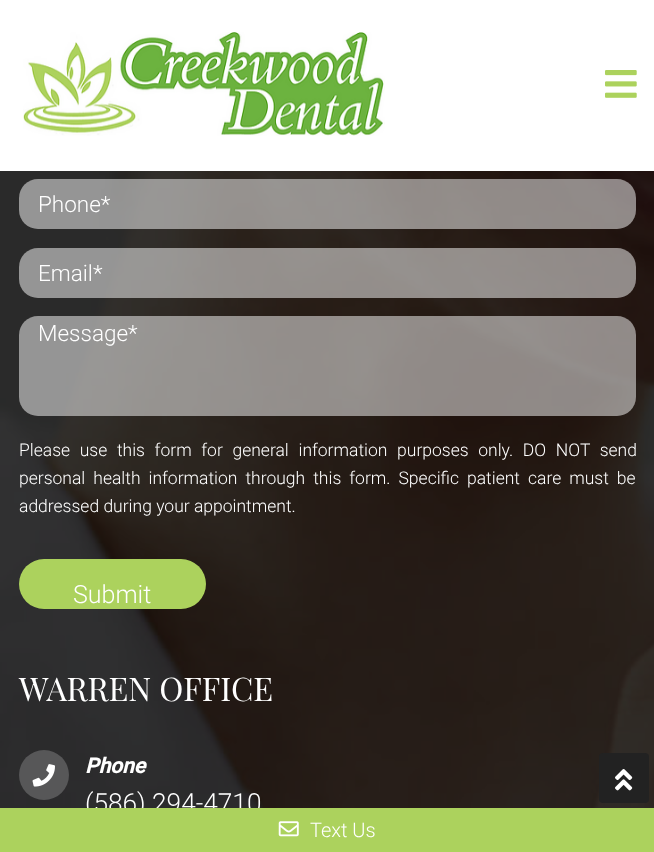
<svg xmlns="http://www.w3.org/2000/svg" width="654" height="852">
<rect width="100%" height="100%" fill="#000"/>
<rect width="654" height="171" fill="#fff"/>
<image x="23" y="32" width="362" height="104" href="media/1.png"/>
<image x="605" y="70" width="32" height="28" href="media/2.png"/>
<image x="0" y="171" width="654" height="637" href="media/3.png"/>
<rect x="19" y="179" width="617" height="50" rx="19" fill="#ffffff80"/>
<text x="38" y="212" style="font-family:Roboto;font-size:22.5px;font-weight:300;fill:#fff">Phone*</text>
<rect x="19" y="248" width="617" height="50" rx="19" fill="#ffffff80"/>
<text x="38" y="281" style="font-family:Roboto;font-size:22.5px;font-weight:300;fill:#fff">Email*</text>
<rect x="19" y="316" width="617" height="100" rx="19" fill="#ffffff80"/>
<text x="38" y="341" style="font-family:Roboto;font-size:22.5px;font-weight:300;fill:#fff">Message*</text>
<text x="19" y="456" word-spacing="5.4" style="font-family:Roboto;font-size:17.5px;font-weight:300;fill:#fff">Please use this form for general information purposes only. DO NOT send</text>
<text x="19" y="484" word-spacing="3.75" style="font-family:Roboto;font-size:17.5px;font-weight:300;fill:#fff">personal health information through this form. Specific patient care must be</text>
<text x="19" y="512" style="font-family:Roboto;font-size:17.5px;font-weight:300;fill:#fff">addressed during your appointment.</text>
<rect x="19" y="559" width="187" height="50" rx="25" fill="#acd25d"/>
<text x="73" y="603" style="font-family:Roboto;font-size:25px;font-weight:300;fill:#fff">Submit</text>
<text x="19" y="701" style="font-family:Playfair Display;font-size:32.5px;fill:#fff">WARREN OFFICE</text>
<circle cx="44" cy="775" r="25" fill="#575758"/>
<image x="32" y="764" width="23" height="23" href="media/4.png"/>
<text x="85" y="773" style="font-family:Roboto;font-size:21px;font-weight:bold;font-style:italic;fill:#fff">Phone</text>
<text x="85" y="812" style="font-family:Roboto;font-size:26.25px;font-weight:300;fill:#fff">(586) 294-4710</text>
<rect x="599" y="753" width="50" height="50" rx="4" fill="#222"/>
<image x="615" y="769" width="18" height="22" href="media/5.png"/>
<rect y="808" width="654" height="44" fill="#acd25d"/>
<image x="278" y="821" width="21" height="16" href="media/6.png"/>
<text x="310" y="837" style="font-family:Roboto;font-size:20px;font-weight:300;fill:#fff">Text Us</text>
</svg>
